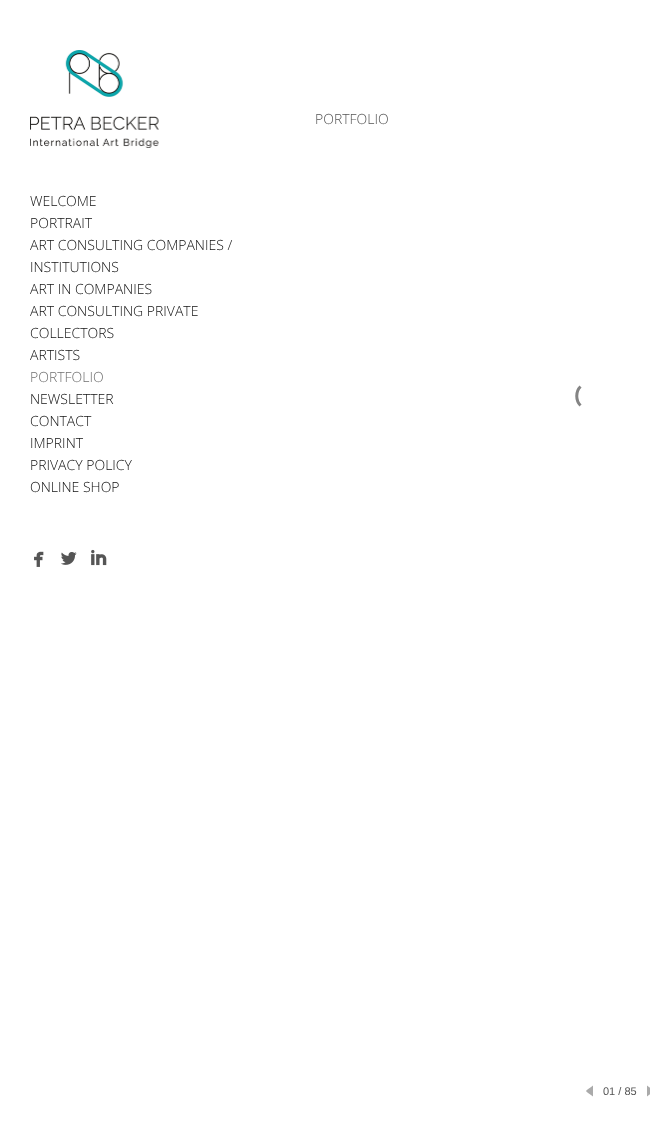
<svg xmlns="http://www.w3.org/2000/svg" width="650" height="1127">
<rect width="100%" height="100%" fill="#fff"/>
<image x="30" y="50" width="129" height="98" href="media/1.png"/>
<text x="315" y="124" style="font-family:Open Sans;font-size:14px;font-weight:300;fill:#555">PORTFOLIO</text>
<text x="30" y="206" style="font-family:Open Sans;font-size:14px;font-weight:300;fill:#111">WELCOME</text>
<text x="30" y="228" style="font-family:Open Sans;font-size:14px;font-weight:300;fill:#111">PORTRAIT</text>
<text x="30" y="250" style="font-family:Open Sans;font-size:14px;font-weight:300;fill:#111">ART CONSULTING COMPANIES /</text>
<text x="30" y="272" style="font-family:Open Sans;font-size:14px;font-weight:300;fill:#111">INSTITUTIONS</text>
<text x="30" y="294" style="font-family:Open Sans;font-size:14px;font-weight:300;fill:#111">ART IN COMPANIES</text>
<text x="30" y="316" style="font-family:Open Sans;font-size:14px;font-weight:300;fill:#111">ART CONSULTING PRIVATE</text>
<text x="30" y="338" style="font-family:Open Sans;font-size:14px;font-weight:300;fill:#111">COLLECTORS</text>
<text x="30" y="360" style="font-family:Open Sans;font-size:14px;font-weight:300;fill:#111">ARTISTS</text>
<text x="30" y="382" style="font-family:Open Sans;font-size:14px;font-weight:300;fill:#707070">PORTFOLIO</text>
<text x="30" y="404" style="font-family:Open Sans;font-size:14px;font-weight:300;fill:#111">NEWSLETTER</text>
<text x="30" y="426" style="font-family:Open Sans;font-size:14px;font-weight:300;fill:#111">CONTACT</text>
<text x="30" y="448" style="font-family:Open Sans;font-size:14px;font-weight:300;fill:#111">IMPRINT</text>
<text x="30" y="470" style="font-family:Open Sans;font-size:14px;font-weight:300;fill:#111">PRIVACY POLICY</text>
<text x="30" y="492" style="font-family:Open Sans;font-size:14px;font-weight:300;fill:#111">ONLINE SHOP</text>
<image x="34" y="551" width="10" height="16" href="media/2.png"/>
<image x="61" y="552" width="16" height="13" href="media/3.png"/>
<image x="91" y="549" width="16" height="17" href="media/4.png"/>
<path d="M580.5 405.5c-5-5-5-14 0-19" fill="none" stroke="#848484" stroke-width="3"/>
<path d="M593 1096.5c-9-7-9-4 0-11z" fill="#aaa"/>
<text x="603" y="1095" style="font-family:Liberation Sans;font-size:11px;fill:#555">01 / 85</text>
<path d="M647 1085.5c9 7 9 4 0 11z" fill="#aaa"/>
</svg>
